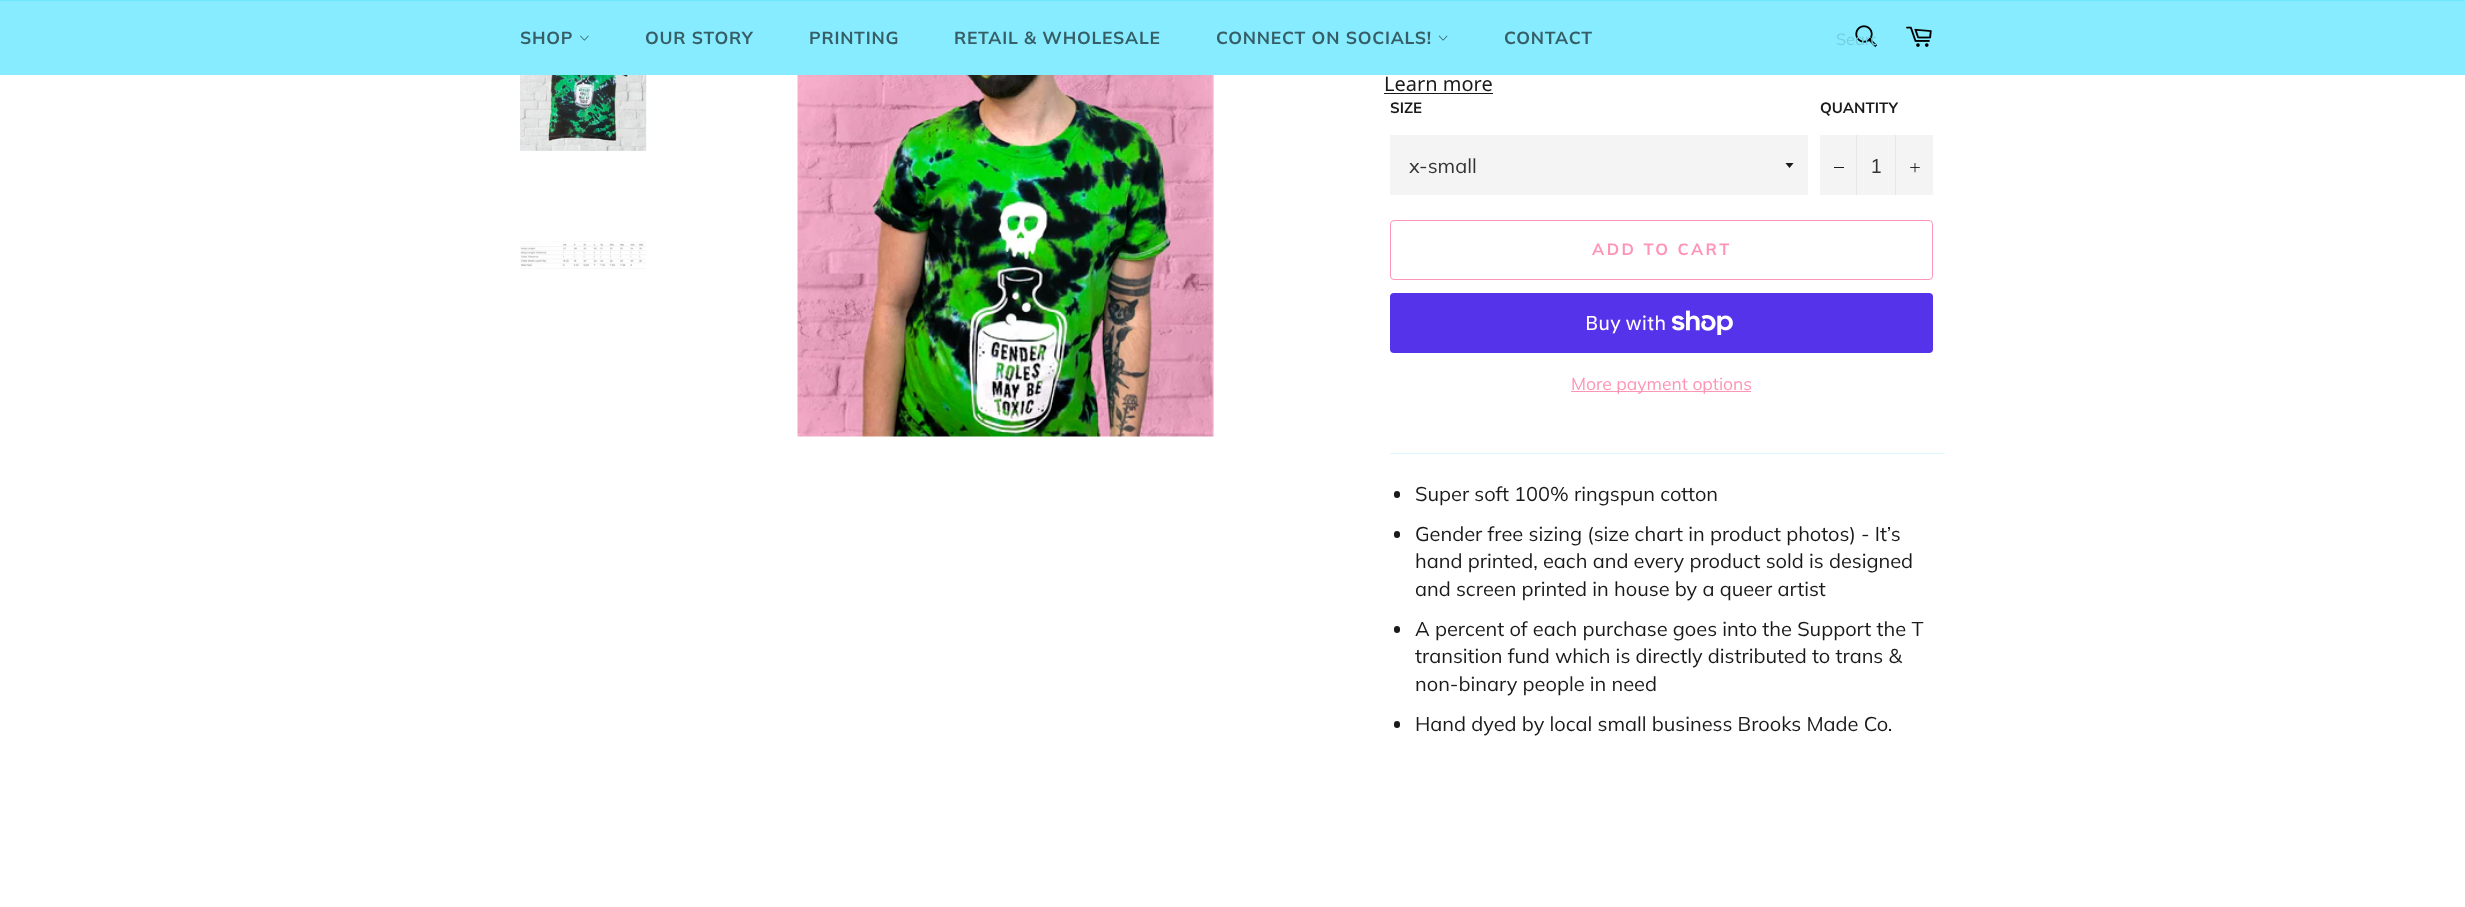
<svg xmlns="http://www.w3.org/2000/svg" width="2465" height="907">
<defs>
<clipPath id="clip1"><rect x="1836" y="29" width="40" height="20"/></clipPath>
<clipPath id="clip2"><rect x="1785" y="163" width="10" height="6"/></clipPath>
</defs>
<rect width="100%" height="100%" fill="#fff"/>
<rect y="1" width="2465" height="74" fill="#87ecff"/>
<rect width="2465" height="1" fill="#6ee8ff"/>
<text x="520" y="44" style="font-family:Muli;font-size:17.5px;font-weight:bold;letter-spacing:0.75px;fill:#365e66">SHOP</text>
<image x="580" y="35" width="9" height="6" href="media/1.png"/>
<text x="645" y="44" style="font-family:Muli;font-size:17.5px;font-weight:bold;letter-spacing:0.75px;fill:#365e66">OUR STORY</text>
<text x="809" y="44" style="font-family:Muli;font-size:17.5px;font-weight:bold;letter-spacing:0.75px;fill:#365e66">PRINTING</text>
<text x="954" y="44" style="font-family:Muli;font-size:17.5px;font-weight:bold;letter-spacing:0.75px;fill:#365e66">RETAIL &amp; WHOLESALE</text>
<text x="1216" y="44" style="font-family:Muli;font-size:17.5px;font-weight:bold;letter-spacing:0.75px;fill:#365e66">CONNECT ON SOCIALS!</text>
<image x="1438" y="35" width="10" height="6" href="media/2.png"/>
<text x="1504" y="44" style="font-family:Muli;font-size:17.5px;font-weight:bold;letter-spacing:0.75px;fill:#365e66">CONTACT</text>
<image x="1855" y="25" width="22" height="22" href="media/3.png"/>
<g clip-path="url(#clip1)">
<text x="1836" y="45" style="font-family:Muli;font-size:16.25px;fill:#75cdde">Searc</text>
</g>
<image x="1906" y="26" width="26" height="21" href="media/4.png"/>
<image x="520" y="75" width="127" height="76" href="media/5.png"/>
<image x="520" y="241" width="126" height="28" href="media/6.png"/>
<image x="797" y="75" width="417" height="362" href="media/7.png"/>
<text x="1384" y="91" style="font-family:Noto Sans;font-size:20px;fill:#1a1a1a">Learn more</text>
<rect x="1384" y="93" width="109" height="1" fill="#1a1a1a"/>
<text x="1390" y="113" style="font-family:Muli;font-size:15px;font-weight:bold;fill:#1a1a1a">SIZE</text>
<rect x="1390" y="135" width="418" height="60" fill="#f4f4f4"/>
<g clip-path="url(#clip2)">
<path d="M1785 162.5l4.5 5.5l4.5-5.5z" fill="#1a1a1a"/>
</g>
<text x="1409" y="173" style="font-family:Muli;font-size:20px;fill:#333">x-small</text>
<text x="1820" y="113" style="font-family:Muli;font-size:15px;font-weight:bold;fill:#1a1a1a">QUANTITY</text>
<rect x="1820" y="135" width="113" height="60" fill="#f4f4f4"/>
<rect x="1856" y="135" width="1" height="60" fill="#e7e7e7"/>
<rect x="1834" y="167" width="10" height="1" fill="#1a1a1a"/>
<text x="1870" y="173" style="font-family:Muli;font-size:20px;fill:#333">1</text>
<rect x="1895" y="135" width="1" height="60" fill="#e7e7e7"/>
<image x="1910" y="163" width="10" height="10" href="media/8.png"/>
<rect x="1390.5" y="220.5" width="542" height="59" rx="3.5" fill="none" stroke="#ff95b6"/>
<text x="1592" y="255" style="font-family:Muli;font-size:16.25px;font-weight:bold;letter-spacing:2.5px;fill:#ff95b6">ADD TO CART</text>
<rect x="1390" y="293" width="543" height="60" rx="4" fill="#5433eb"/>
<text x="1585" y="330" style="font-family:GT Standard;font-size:20px;fill:#fff">Buy with</text>
<image x="1671" y="310" width="62" height="25" href="media/9.png"/>
<rect x="1571" y="391" width="180" height="1" fill="#ff95b6"/>
<text x="1571" y="390" style="font-family:Muli;font-size:17.5px;fill:#ff95b6">More payment options</text>
<rect x="1390" y="453" width="555" height="1" fill="#defaff"/>
<rect x="1394" y="491" width="6" height="7" rx="3" fill="#1a1a1a"/>
<text x="1415" y="501" style="font-family:Muli;font-size:20px;fill:#1a1a1a">Super soft 100% ringspun cotton</text>
<rect x="1394" y="531" width="6" height="7" rx="3" fill="#1a1a1a"/>
<text x="1415" y="541" style="font-family:Muli;font-size:20px;fill:#1a1a1a">Gender free sizing (size chart in product photos) - It’s</text>
<text x="1415" y="568" style="font-family:Muli;font-size:20px;fill:#1a1a1a">hand printed, each and every product sold is designed</text>
<text x="1415" y="596" style="font-family:Muli;font-size:20px;fill:#1a1a1a">and screen printed in house by a queer artist</text>
<rect x="1394" y="626" width="6" height="7" rx="3" fill="#1a1a1a"/>
<text x="1415" y="636" style="font-family:Muli;font-size:20px;fill:#1a1a1a">A percent of each purchase goes into the Support the T</text>
<text x="1415" y="663" style="font-family:Muli;font-size:20px;fill:#1a1a1a">transition fund which is directly distributed to trans &amp;</text>
<text x="1415" y="691" style="font-family:Muli;font-size:20px;fill:#1a1a1a">non-binary people in need</text>
<rect x="1394" y="721" width="6" height="7" rx="3" fill="#1a1a1a"/>
<text x="1415" y="731" style="font-family:Muli;font-size:20px;fill:#1a1a1a">Hand dyed by local small business Brooks Made Co.</text>
</svg>
